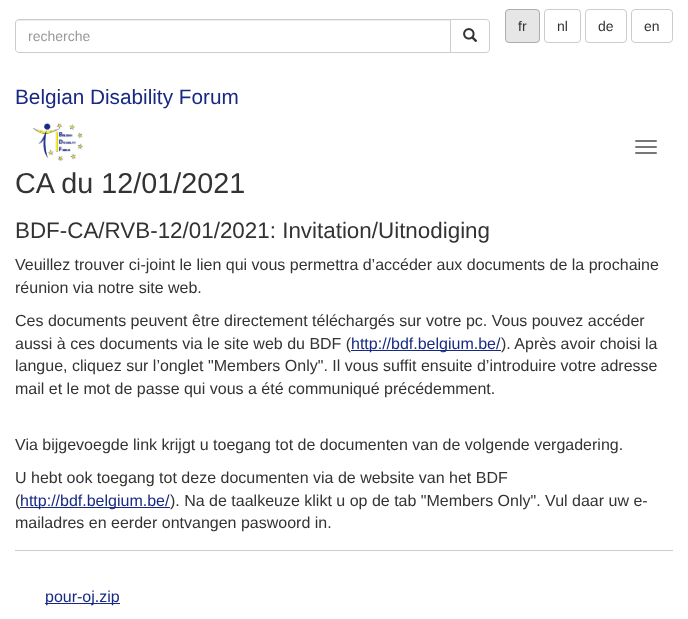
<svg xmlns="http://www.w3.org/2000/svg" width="688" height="619">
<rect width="100%" height="100%" fill="#fff"/>
<rect x="505.5" y="9.5" width="34" height="33" rx="3.5" fill="#e6e6e6" stroke="#adadad"/>
<text x="518" y="31" style="font-family:Liberation Sans;font-size:14px;fill:#333">fr</text>
<rect x="544.5" y="9.5" width="36" height="33" rx="3.5" fill="none" stroke="#ccc"/>
<text x="557" y="31" style="font-family:Liberation Sans;font-size:14px;fill:#333">nl</text>
<rect x="585.5" y="9.5" width="41" height="33" rx="3.5" fill="none" stroke="#ccc"/>
<text x="598" y="31" style="font-family:Liberation Sans;font-size:14px;fill:#333">de</text>
<rect x="631.5" y="9.5" width="41" height="33" rx="3.5" fill="none" stroke="#ccc"/>
<text x="644" y="31" style="font-family:Liberation Sans;font-size:14px;fill:#333">en</text>
<path d="M19 21h431v-1h-431c-2 0-3 2-3 4c0-2 1-3 3-3z" fill="#ececec"/>
<path d="M19 19.5h431.5v33h-431.5c-2 0-3.5-1.5-3.5-3.5v-26c0-2 1.5-3.5 3.5-3.5z" fill="none" stroke="#ccc"/>
<text x="28" y="41" style="font-family:Liberation Sans;font-size:14px;fill:#999">recherche</text>
<path d="M450.5 19.5h35.5c2 0 3.5 1.5 3.5 3.5v26c0 2-1.5 3.5-3.5 3.5h-35.5z" fill="#fff" stroke="#ccc"/>
<image x="463" y="28" width="15" height="14" href="media/1.png"/>
<text x="15" y="104" style="font-family:Liberation Sans;font-size:20.75px;fill:#172983">Belgian Disability Forum</text>
<image x="33" y="123" width="50" height="39" href="media/2.png"/>
<rect x="635" y="140" width="22" height="2" rx="1" fill="#777"/>
<rect x="635" y="146" width="22" height="2" rx="1" fill="#777"/>
<rect x="635" y="152" width="22" height="2" rx="1" fill="#777"/>
<text x="15" y="193" style="font-family:Liberation Sans;font-size:28.75px;fill:#333">CA du 12/01/2021</text>
<text x="15" y="238" style="font-family:Liberation Sans;font-size:22.4px;fill:#333">BDF-CA/RVB-12/01/2021: Invitation/Uitnodiging</text>
<text x="15" y="270" style="font-family:Liberation Sans;font-size:16px;fill:#333">Veuillez trouver ci-joint le lien qui vous permettra d’accéder aux documents de la prochaine</text>
<text x="15" y="293" style="font-family:Liberation Sans;font-size:16px;fill:#333">réunion via notre site web.</text>
<text x="15" y="326" style="font-family:Liberation Sans;font-size:16px;fill:#333">Ces documents peuvent être directement téléchargés sur votre pc. Vous pouvez accéder</text>
<text x="15" y="349" style="font-family:Liberation Sans;font-size:16px;fill:#333">aussi à ces documents via le site web du BDF (</text>
<rect x="351" y="350" width="150" height="1" fill="#172983"/>
<text x="351" y="349" style="font-family:Liberation Sans;font-size:16px;fill:#172983">http://bdf.belgium.be/</text>
<text x="501" y="349" style="font-family:Liberation Sans;font-size:16px;fill:#333">). Après avoir choisi la</text>
<text x="15" y="371" style="font-family:Liberation Sans;font-size:16px;fill:#333">langue, cliquez sur l’onglet "Members Only". Il vous suffit ensuite d’introduire votre adresse</text>
<text x="15" y="394" style="font-family:Liberation Sans;font-size:16px;fill:#333">mail et le mot de passe qui vous a été communiqué précédemment.</text>
<text x="15" y="450" style="font-family:Liberation Sans;font-size:16px;fill:#333">Via bijgevoegde link krijgt u toegang tot de documenten van de volgende vergadering.</text>
<text x="15" y="483" style="font-family:Liberation Sans;font-size:16px;fill:#333">U hebt ook toegang tot deze documenten via de website van het BDF</text>
<text x="15" y="506" style="font-family:Liberation Sans;font-size:16px;fill:#333">(</text>
<rect x="20" y="507" width="150" height="1" fill="#172983"/>
<text x="20" y="506" style="font-family:Liberation Sans;font-size:16px;fill:#172983">http://bdf.belgium.be/</text>
<text x="170" y="506" style="font-family:Liberation Sans;font-size:16px;fill:#333">). Na de taalkeuze klikt u op de tab "Members Only". Vul daar uw e-</text>
<text x="15" y="528" style="font-family:Liberation Sans;font-size:16px;fill:#333">mailadres en eerder ontvangen paswoord in.</text>
<rect x="15" y="550" width="658" height="1" fill="#ccc"/>
<rect x="45" y="603" width="75" height="1" fill="#172983"/>
<text x="45" y="602" style="font-family:Liberation Sans;font-size:16px;fill:#172983">pour-oj.zip</text>
</svg>
